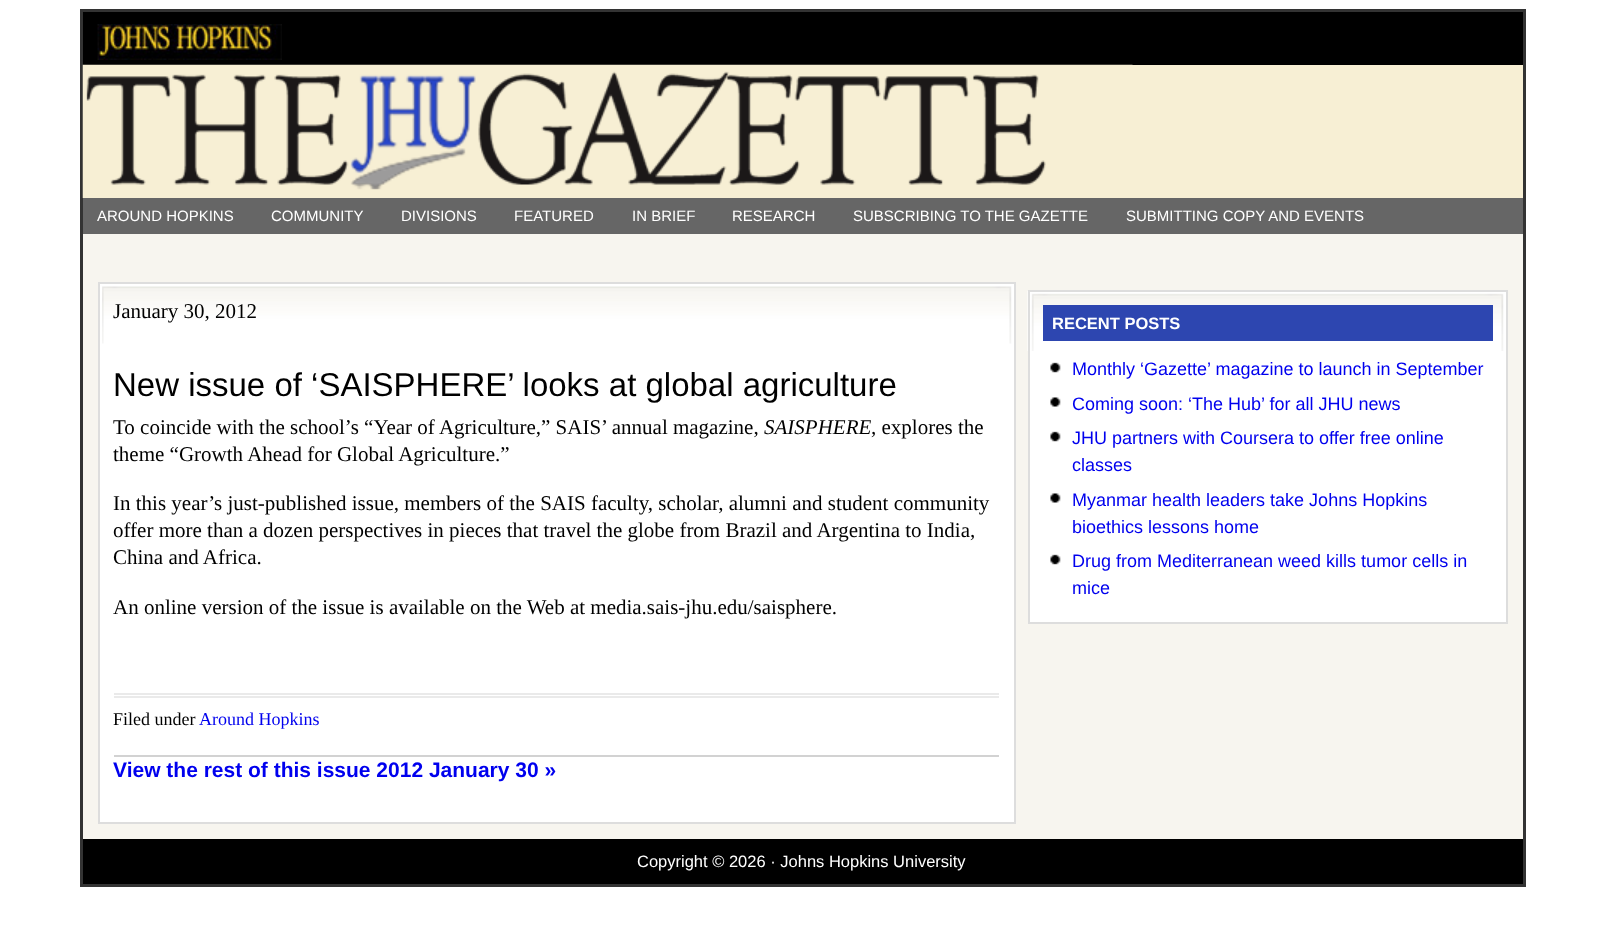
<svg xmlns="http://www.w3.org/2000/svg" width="1603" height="936">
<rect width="100%" height="100%" fill="#fff"/>
<rect x="83" y="234" width="1440" height="605" fill="#f7f5ef"/>
<rect x="81.5" y="10.5" width="1443" height="875" fill="none" stroke="#333" stroke-width="3"/>
<rect x="83" y="12" width="1440" height="53" fill="#000"/>
<image x="97" y="24" width="185" height="36" href="media/1.png"/>
<rect x="1132" y="65" width="391" height="133" fill="#f7efd4"/>
<image x="82" y="64" width="1051" height="134" href="media/2.png"/>
<rect x="83" y="198" width="1440" height="36" fill="#666"/>
<text x="97" y="221" style="font-family:Liberation Sans;font-size:15px;fill:#fff">AROUND HOPKINS</text>
<text x="271" y="221" style="font-family:Liberation Sans;font-size:15px;fill:#fff">COMMUNITY</text>
<text x="401" y="221" style="font-family:Liberation Sans;font-size:15px;fill:#fff">DIVISIONS</text>
<text x="514" y="221" style="font-family:Liberation Sans;font-size:15px;fill:#fff">FEATURED</text>
<text x="632" y="221" style="font-family:Liberation Sans;font-size:15px;fill:#fff">IN BRIEF</text>
<text x="732" y="221" style="font-family:Liberation Sans;font-size:15px;fill:#fff">RESEARCH</text>
<text x="853" y="221" style="font-family:Liberation Sans;font-size:15px;fill:#fff">SUBSCRIBING TO THE GAZETTE</text>
<text x="1126" y="221" style="font-family:Liberation Sans;font-size:15px;fill:#fff">SUBMITTING COPY AND EVENTS</text>
<rect x="100" y="284" width="914" height="538" fill="#fff"/>
<image x="102" y="286" width="910" height="58" href="media/3.png"/>
<rect x="99" y="283" width="916" height="540" fill="none" stroke="#ddd" stroke-width="2"/>
<text x="113" y="318" style="font-family:Liberation Serif;font-size:21px;fill:#000">January 30, 2012</text>
<text x="113" y="396" style="font-family:Liberation Sans;font-size:33px;fill:#000">New issue of ‘SAISPHERE’ looks at global agriculture</text>
<text x="113" y="434" style="font-family:Liberation Serif;font-size:21px;fill:#000">To coincide with the school’s “Year of Agriculture,” SAIS’ annual magazine,</text>
<text x="764" y="434" style="font-family:Liberation Serif;font-size:21px;font-style:italic;fill:#000">SAISPHERE</text>
<text x="871" y="434" style="font-family:Liberation Serif;font-size:21px;fill:#000">, explores the</text>
<text x="113" y="461" style="font-family:Liberation Serif;font-size:21px;fill:#000">theme “Growth Ahead for Global Agriculture.”</text>
<text x="113" y="510" style="font-family:Liberation Serif;font-size:21px;fill:#000">In this year’s just-published issue, members of the SAIS faculty, scholar, alumni and student community</text>
<text x="113" y="537" style="font-family:Liberation Serif;font-size:21px;fill:#000">offer more than a dozen perspectives in pieces that travel the globe from Brazil and Argentina to India,</text>
<text x="113" y="564" style="font-family:Liberation Serif;font-size:21px;fill:#000">China and Africa.</text>
<text x="113" y="614" style="font-family:Liberation Serif;font-size:21px;fill:#000">An online version of the issue is available on the Web at media.sais-jhu.edu/saisphere.</text>
<rect x="114" y="693" width="885" height="2" fill="#eaeaea"/>
<rect x="114" y="696" width="885" height="2" fill="#eaeaea"/>
<text x="113" y="725" style="font-family:Liberation Serif;font-size:18px;fill:#000">Filed under</text>
<text x="199" y="725" style="font-family:Liberation Serif;font-size:18px;fill:#00e">Around Hopkins</text>
<rect x="114" y="755" width="885" height="2" fill="#d2d2d2"/>
<text x="113" y="777" style="font-family:Liberation Sans;font-size:21px;font-weight:bold;fill:#00e">View the rest of this issue 2012 January 30 »</text>
<rect x="1030" y="292" width="476" height="330" fill="#fff"/>
<image x="1027" y="291" width="477" height="60" href="media/4.png"/>
<rect x="1029" y="291" width="478" height="332" fill="none" stroke="#ddd" stroke-width="2"/>
<rect x="1043" y="305" width="450" height="36" fill="#2d46b0"/>
<text x="1052" y="329" style="font-family:Liberation Sans;font-size:16.5px;font-weight:bold;fill:#fff">RECENT POSTS</text>
<image x="1050" y="362" width="11" height="11" href="media/5.png"/>
<text x="1072" y="375" style="font-family:Liberation Sans;font-size:18px;fill:#00e">Monthly ‘Gazette’ magazine to launch in September</text>
<image x="1050" y="397" width="11" height="10" href="media/6.png"/>
<text x="1072" y="410" style="font-family:Liberation Sans;font-size:18px;fill:#00e">Coming soon: ‘The Hub’ for all JHU news</text>
<image x="1050" y="431" width="11" height="11" href="media/5.png"/>
<text x="1072" y="444" style="font-family:Liberation Sans;font-size:18px;fill:#00e">JHU partners with Coursera to offer free online</text>
<text x="1072" y="471" style="font-family:Liberation Sans;font-size:18px;fill:#00e">classes</text>
<image x="1050" y="493" width="11" height="10" href="media/6.png"/>
<text x="1072" y="506" style="font-family:Liberation Sans;font-size:18px;fill:#00e">Myanmar health leaders take Johns Hopkins</text>
<text x="1072" y="533" style="font-family:Liberation Sans;font-size:18px;fill:#00e">bioethics lessons home</text>
<image x="1050" y="554" width="11" height="11" href="media/5.png"/>
<text x="1072" y="567" style="font-family:Liberation Sans;font-size:18px;fill:#00e">Drug from Mediterranean weed kills tumor cells in</text>
<text x="1072" y="594" style="font-family:Liberation Sans;font-size:18px;fill:#00e">mice</text>
<rect x="83" y="839" width="1440" height="45" fill="#000"/>
<text x="637" y="867" style="font-family:Liberation Sans;font-size:16.5px;fill:#fff">Copyright © 2026 · Johns Hopkins University</text>
</svg>
